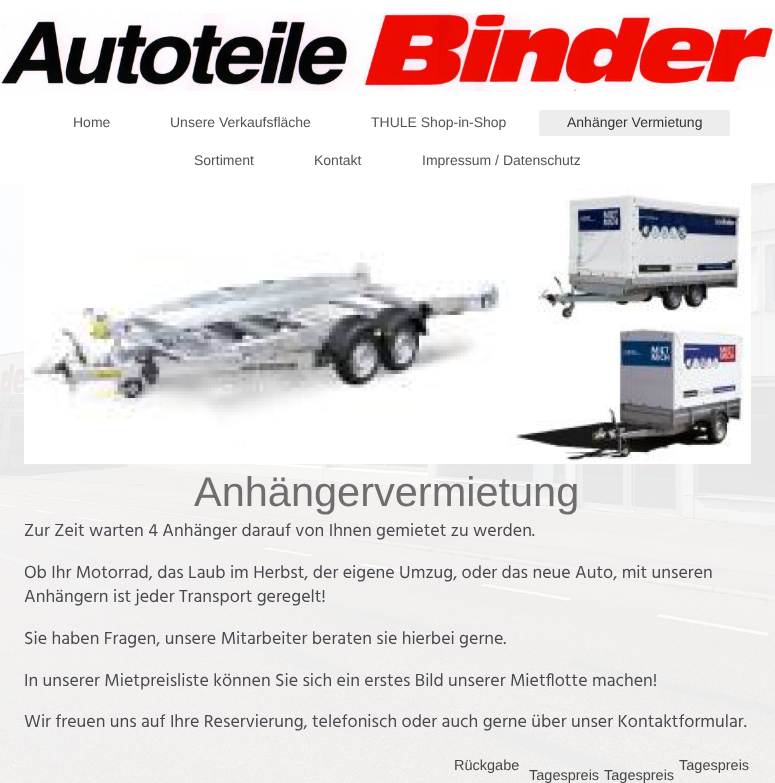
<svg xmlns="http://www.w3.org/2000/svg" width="775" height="783">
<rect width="100%" height="100%" fill="#fff"/>
<image x="0" y="183" width="775" height="600" href="media/1.png"/>
<image x="0" y="13" width="775" height="78" href="media/2.png"/>
<text x="73" y="127" style="font-family:Liberation Sans;font-size:14px;fill:#535353">Home</text>
<text x="170" y="127" style="font-family:Liberation Sans;font-size:14px;fill:#535353">Unsere Verkaufsfläche</text>
<text x="371" y="127" style="font-family:Liberation Sans;font-size:14px;fill:#535353">THULE Shop-in-Shop</text>
<rect x="539" y="110" width="191" height="26" rx="2" fill="#ededed"/>
<text x="567" y="127" style="font-family:Liberation Sans;font-size:14px;fill:#353535">Anhänger Vermietung</text>
<text x="194" y="165" style="font-family:Liberation Sans;font-size:14px;fill:#535353">Sortiment</text>
<text x="314" y="165" style="font-family:Liberation Sans;font-size:14px;fill:#535353">Kontakt</text>
<text x="422" y="165" style="font-family:Liberation Sans;font-size:14px;fill:#535353">Impressum / Datenschutz</text>
<rect y="183" width="775" height="600" fill="#ffffffe6"/>
<image x="24" y="183" width="485" height="281" href="media/3.png"/>
<image x="509" y="183" width="242" height="141" href="media/4.png"/>
<image x="509" y="324" width="242" height="140" href="media/5.png"/>
<text x="194" y="506" style="font-family:Liberation Sans;font-size:41.5px;fill:#716d6e">Anhängervermietung</text>
<text x="24" y="536" style="font-family:Hind;font-size:18px;fill:#4a494f">Zur Zeit warten 4 Anhänger darauf von Ihnen gemietet zu werden.</text>
<text x="24" y="578" style="font-family:Hind;font-size:18px;fill:#4a494f">Ob Ihr Motorrad, das Laub im Herbst, der eigene Umzug, oder das neue Auto, mit unseren</text>
<text x="24" y="602" style="font-family:Hind;font-size:18px;fill:#4a494f">Anhängern ist jeder Transport geregelt!</text>
<text x="24" y="644" style="font-family:Hind;font-size:18px;fill:#4a494f">Sie haben Fragen, unsere Mitarbeiter beraten sie hierbei gerne.</text>
<text x="24" y="686" style="font-family:Hind;font-size:18px;fill:#4a494f">In unserer Mietpreisliste können Sie sich ein erstes Bild unserer Mietflotte machen!</text>
<text x="24" y="727" style="font-family:Hind;font-size:18px;fill:#4a494f">Wir freuen uns auf Ihre Reservierung, telefonisch oder auch gerne über unser Kontaktformular.</text>
<text x="454" y="770" style="font-family:Liberation Sans;font-size:14.5px;fill:#474747">Rückgabe</text>
<text x="679" y="770" style="font-family:Liberation Sans;font-size:14.5px;fill:#474747">Tagespreis</text>
<text x="529" y="780" style="font-family:Liberation Sans;font-size:14.5px;fill:#474747">Tagespreis</text>
<text x="604" y="780" style="font-family:Liberation Sans;font-size:14.5px;fill:#474747">Tagespreis</text>
</svg>
